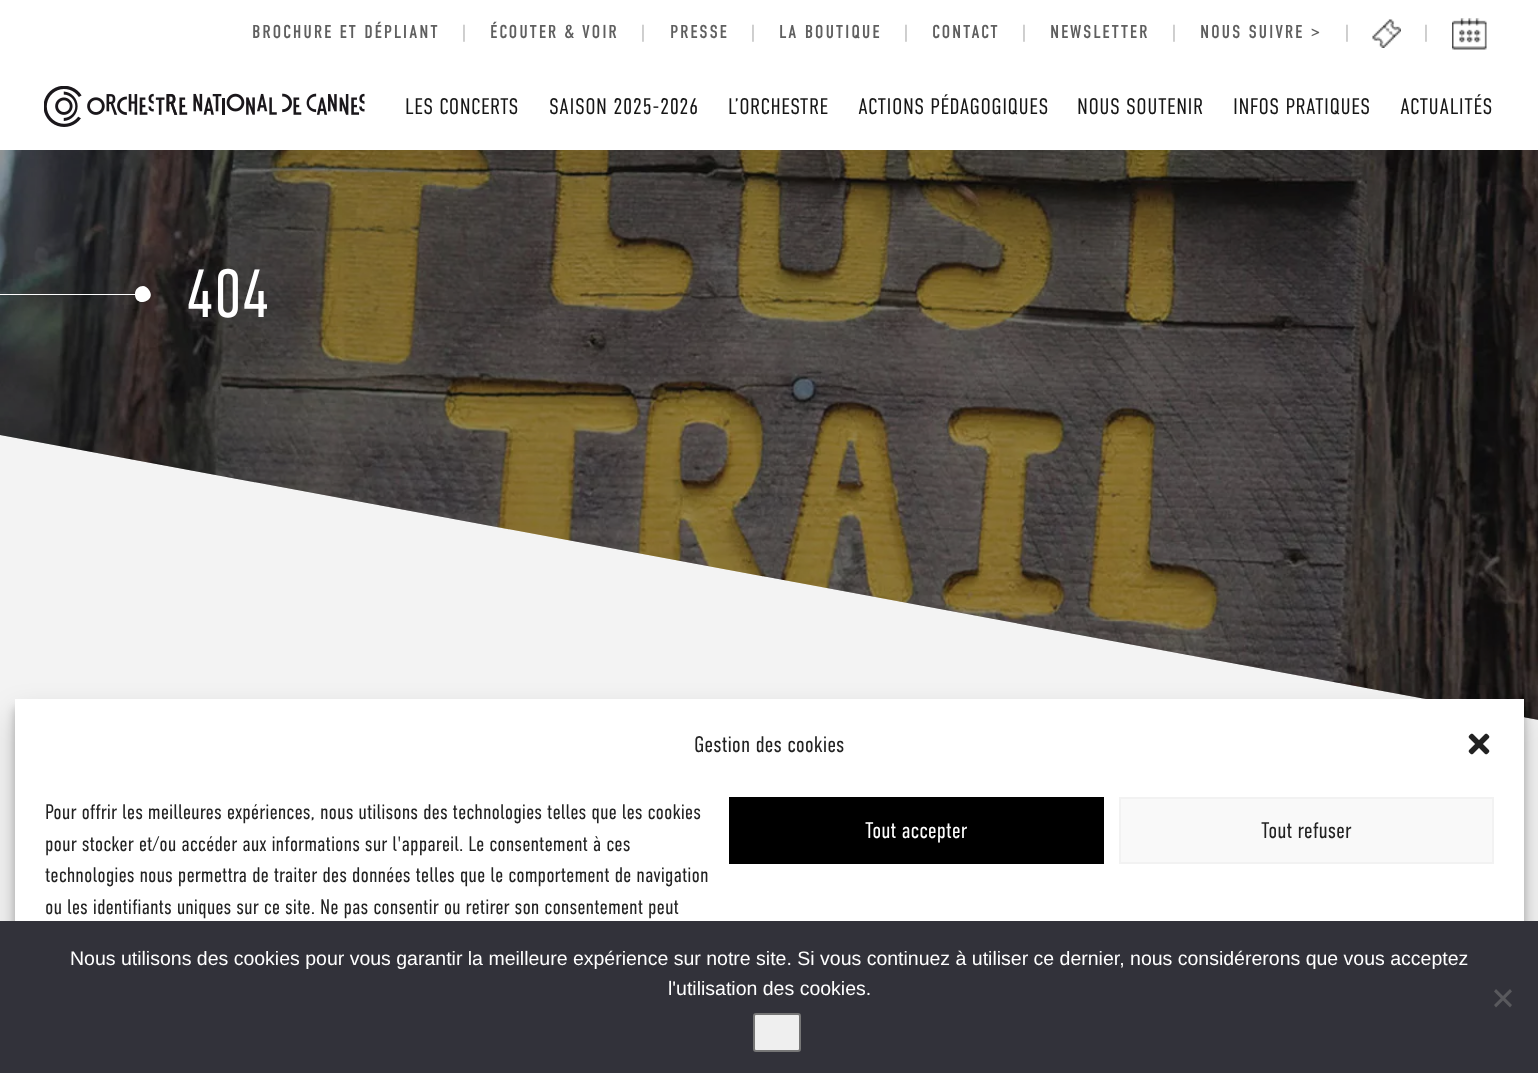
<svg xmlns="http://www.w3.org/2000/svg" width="1538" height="1073">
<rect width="100%" height="100%" fill="#f3f3f3"/>
<rect width="1538" height="150" fill="#fff"/>
<text x="252" y="38" style="font-family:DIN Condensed;font-size:18px;font-weight:bold;letter-spacing:2.25px;fill:#5f5f5f">BROCHURE ET DÉPLIANT</text>
<text x="462" y="38" style="font-family:DIN Condensed;font-size:18px;font-weight:bold;letter-spacing:2.25px;fill:#c2c2c2">|</text>
<text x="490" y="38" style="font-family:DIN Condensed;font-size:18px;font-weight:bold;letter-spacing:2.25px;fill:#5f5f5f">ÉCOUTER &amp; VOIR</text>
<text x="641" y="38" style="font-family:DIN Condensed;font-size:18px;font-weight:bold;letter-spacing:2.25px;fill:#c2c2c2">|</text>
<text x="670" y="38" style="font-family:DIN Condensed;font-size:18px;font-weight:bold;letter-spacing:2.25px;fill:#5f5f5f">PRESSE</text>
<text x="751" y="38" style="font-family:DIN Condensed;font-size:18px;font-weight:bold;letter-spacing:2.25px;fill:#c2c2c2">|</text>
<text x="779" y="38" style="font-family:DIN Condensed;font-size:18px;font-weight:bold;letter-spacing:2.25px;fill:#5f5f5f">LA BOUTIQUE</text>
<text x="904" y="38" style="font-family:DIN Condensed;font-size:18px;font-weight:bold;letter-spacing:2.25px;fill:#c2c2c2">|</text>
<text x="932" y="38" style="font-family:DIN Condensed;font-size:18px;font-weight:bold;letter-spacing:2.25px;fill:#5f5f5f">CONTACT</text>
<text x="1022" y="38" style="font-family:DIN Condensed;font-size:18px;font-weight:bold;letter-spacing:2.25px;fill:#c2c2c2">|</text>
<text x="1050" y="38" style="font-family:DIN Condensed;font-size:18px;font-weight:bold;letter-spacing:2.25px;fill:#5f5f5f">NEWSLETTER</text>
<text x="1172" y="38" style="font-family:DIN Condensed;font-size:18px;font-weight:bold;letter-spacing:2.25px;fill:#c2c2c2">|</text>
<text x="1200" y="38" style="font-family:DIN Condensed;font-size:18px;font-weight:bold;letter-spacing:2.25px;fill:#5f5f5f">NOUS SUIVRE &gt;</text>
<text x="1345" y="38" style="font-family:DIN Condensed;font-size:18px;font-weight:bold;letter-spacing:2.25px;fill:#c2c2c2">|</text>
<image x="1372" y="19" width="29" height="29" href="media/1.png"/>
<text x="1424" y="38" style="font-family:DIN Condensed;font-size:18px;font-weight:bold;letter-spacing:2.25px;fill:#c2c2c2">|</text>
<image x="1452" y="18" width="35" height="32" href="media/2.png"/>
<image x="44" y="86" width="321" height="41" href="media/3.png"/>
<text x="405" y="114" style="font-family:DIN Condensed;font-size:22.5px;font-weight:300;letter-spacing:0.5px;fill:#161616">LES CONCERTS</text>
<text x="549" y="114" style="font-family:DIN Condensed;font-size:22.5px;font-weight:300;letter-spacing:0.5px;fill:#161616">SAISON 2025-2026</text>
<text x="728" y="114" style="font-family:DIN Condensed;font-size:22.5px;font-weight:300;letter-spacing:0.5px;fill:#161616">L’ORCHESTRE</text>
<text x="858" y="114" style="font-family:DIN Condensed;font-size:22.5px;font-weight:300;letter-spacing:0.5px;fill:#161616">ACTIONS PÉDAGOGIQUES</text>
<text x="1077" y="114" style="font-family:DIN Condensed;font-size:22.5px;font-weight:300;letter-spacing:0.5px;fill:#161616">NOUS SOUTENIR</text>
<text x="1233" y="114" style="font-family:DIN Condensed;font-size:22.5px;font-weight:300;letter-spacing:0.5px;fill:#161616">INFOS PRATIQUES</text>
<text x="1400" y="114" style="font-family:DIN Condensed;font-size:22.5px;font-weight:300;letter-spacing:0.5px;fill:#161616">ACTUALITÉS</text>
<image x="0" y="150" width="1538" height="570" href="media/4.png"/>
<path d="M143 286c2 0 5 2 6 4c8 11-13 18-14 5h-135v-1h135c0-5 4-8 8-8z" fill="#fff"/>
<text x="186" y="317" style="font-family:DIN Condensed;font-size:68px;font-weight:300;fill:#fff">404</text>
<rect x="15" y="708" width="1509" height="360" fill="#0000003b" filter="blur(4.5px)"/>
<rect x="15" y="714" width="1509" height="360" fill="#00000030" filter="blur(15px)"/>
<rect x="15" y="699" width="1509" height="222" fill="#fff"/>
<text x="694" y="752" style="font-family:DIN Condensed;font-size:22.5px;font-weight:300;fill:#222">Gestion des cookies</text>
<image x="1468" y="733" width="22" height="22" href="media/5.png"/>
<text x="45" y="819" style="font-family:DIN Condensed;font-size:21px;font-weight:300;fill:#222">Pour offrir les meilleures expériences, nous utilisons des technologies telles que les cookies</text>
<text x="45" y="851" style="font-family:DIN Condensed;font-size:21px;font-weight:300;fill:#222">pour stocker et/ou accéder aux informations sur l'appareil. Le consentement à ces</text>
<text x="45" y="882" style="font-family:DIN Condensed;font-size:21px;font-weight:300;fill:#222">technologies nous permettra de traiter des données telles que le comportement de navigation</text>
<text x="45" y="914" style="font-family:DIN Condensed;font-size:21px;font-weight:300;fill:#222">ou les identifiants uniques sur ce site. Ne pas consentir ou retirer son consentement peut</text>
<rect x="729" y="797" width="375" height="67" fill="#000"/>
<text x="865" y="838" style="font-family:DIN Condensed;font-size:22.5px;font-weight:300;fill:#fff">Tout accepter</text>
<rect x="1120" y="798" width="373" height="65" fill="#f9f9f9" stroke="#f2f2f2" stroke-width="2"/>
<text x="1261" y="838" style="font-family:DIN Condensed;font-size:22.5px;font-weight:300;fill:#222">Tout refuser</text>
<rect y="921" width="1538" height="152" fill="#32323a"/>
<text x="70" y="965" style="font-family:Liberation Sans;font-size:19.5px;fill:#fff">Nous utilisons des cookies pour vous garantir la meilleure expérience sur notre site. Si vous continuez à utiliser ce dernier, nous considérerons que vous acceptez</text>
<text x="668" y="995" style="font-family:Liberation Sans;font-size:19.5px;fill:#fff">l'utilisation des cookies.</text>
<path d="M1510 989l2 2.5l-16 16l-2-2.5z" fill="#59595d"/>
<path d="M1494 991.5l2-2.5l16 16l-2 2.5z" fill="#59595d"/>
<rect x="754" y="1014" width="46" height="37" rx="2" fill="#efefef" stroke="#767676" stroke-width="2"/>
</svg>
